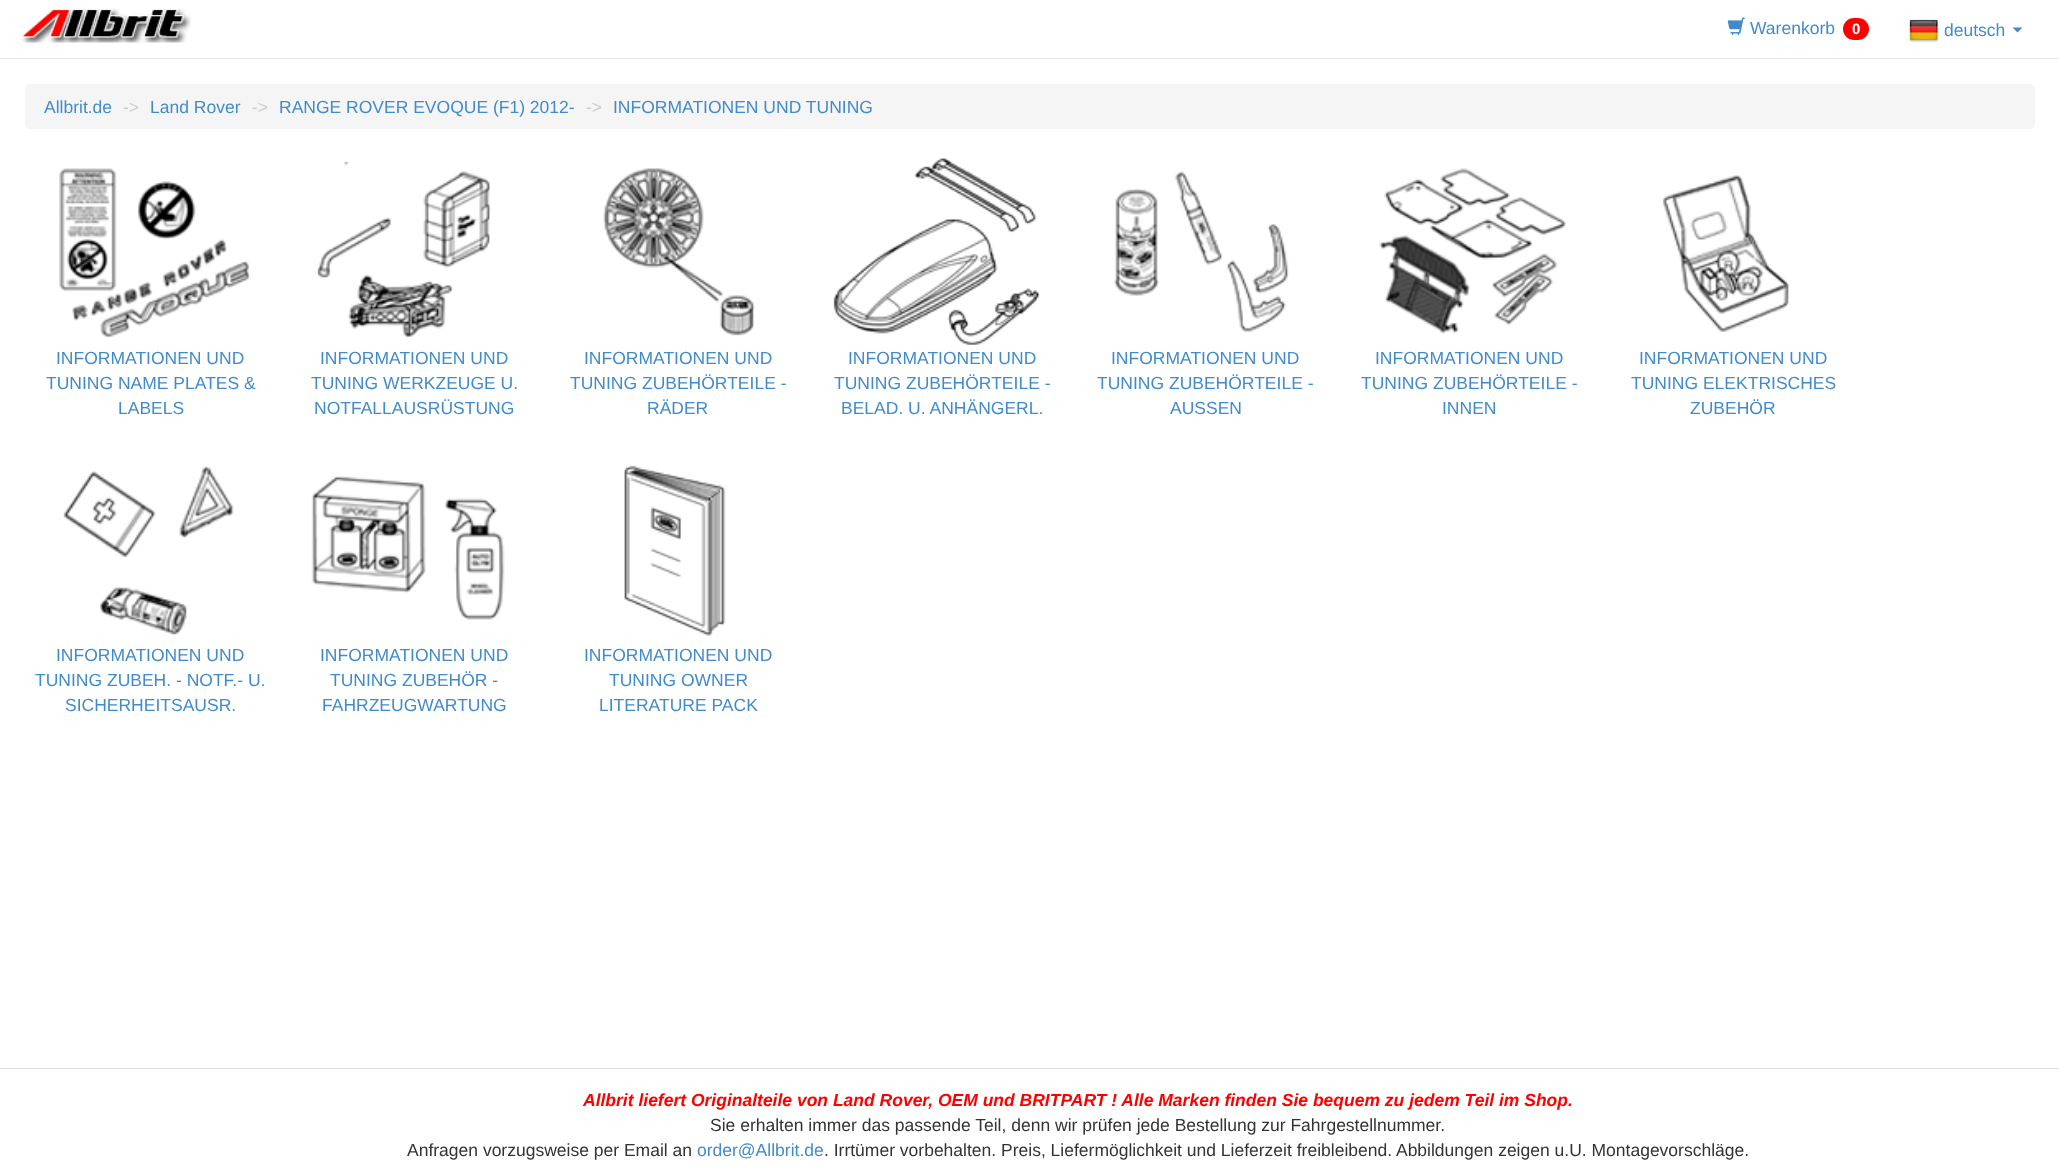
<svg xmlns="http://www.w3.org/2000/svg" width="2059" height="1175">
<rect width="100%" height="100%" fill="#fff"/>
<rect y="58" width="2059" height="1" fill="#e7e7e7"/>
<image x="21" y="8" width="170" height="35" href="media/1.png"/>
<image x="1727" y="17" width="18" height="18" href="media/2.png"/>
<text x="1750" y="34" style="font-family:Liberation Sans;font-size:17.5px;fill:#428bca">Warenkorb</text>
<rect x="1843" y="18" width="26" height="22" rx="11" fill="#f00"/>
<text x="1852" y="34" style="font-family:Liberation Sans;font-size:15px;font-weight:bold;fill:#fff">0</text>
<image x="1909" y="19" width="30" height="24" href="media/3.png"/>
<text x="1944" y="36" style="font-family:Liberation Sans;font-size:17.5px;fill:#428bca">deutsch</text>
<path d="M2012.5 27.5h10l-5 5z" fill="#428bca"/>
<rect x="25" y="84" width="2010" height="45" rx="5" fill="#f5f5f5"/>
<text x="44" y="113" style="font-family:Liberation Sans;font-size:17.5px;fill:#428bca">Allbrit.de</text>
<text x="123" y="113" style="font-family:Liberation Sans;font-size:17.5px;fill:#ccc">-&gt;</text>
<text x="150" y="113" style="font-family:Liberation Sans;font-size:17.5px;fill:#428bca">Land Rover</text>
<text x="252" y="113" style="font-family:Liberation Sans;font-size:17.5px;fill:#ccc">-&gt;</text>
<text x="279" y="113" style="font-family:Liberation Sans;font-size:17.5px;fill:#428bca">RANGE ROVER EVOQUE (F1) 2012-</text>
<text x="586" y="113" style="font-family:Liberation Sans;font-size:17.5px;fill:#ccc">-&gt;</text>
<text x="613" y="113" style="font-family:Liberation Sans;font-size:17.5px;fill:#428bca">INFORMATIONEN UND TUNING</text>
<image x="59" y="168" width="192" height="170" href="media/4.png"/>
<text x="56" y="364" style="font-family:Liberation Sans;font-size:17.5px;fill:#428bca">INFORMATIONEN UND</text>
<text x="46" y="389" style="font-family:Liberation Sans;font-size:17.5px;fill:#428bca">TUNING NAME PLATES &amp;</text>
<text x="118" y="414" style="font-family:Liberation Sans;font-size:17.5px;fill:#428bca">LABELS</text>
<image x="317" y="161" width="174" height="176" href="media/5.png"/>
<text x="320" y="364" style="font-family:Liberation Sans;font-size:17.5px;fill:#428bca">INFORMATIONEN UND</text>
<text x="311" y="389" style="font-family:Liberation Sans;font-size:17.5px;fill:#428bca">TUNING WERKZEUGE U.</text>
<text x="314" y="414" style="font-family:Liberation Sans;font-size:17.5px;fill:#428bca">NOTFALLAUSRÜSTUNG</text>
<image x="603" y="168" width="152" height="168" href="media/6.png"/>
<text x="584" y="364" style="font-family:Liberation Sans;font-size:17.5px;fill:#428bca">INFORMATIONEN UND</text>
<text x="570" y="389" style="font-family:Liberation Sans;font-size:17.5px;fill:#428bca">TUNING ZUBEHÖRTEILE -</text>
<text x="647" y="414" style="font-family:Liberation Sans;font-size:17.5px;fill:#428bca">RÄDER</text>
<image x="833" y="158" width="207" height="187" href="media/7.png"/>
<text x="848" y="364" style="font-family:Liberation Sans;font-size:17.5px;fill:#428bca">INFORMATIONEN UND</text>
<text x="834" y="389" style="font-family:Liberation Sans;font-size:17.5px;fill:#428bca">TUNING ZUBEHÖRTEILE -</text>
<text x="841" y="414" style="font-family:Liberation Sans;font-size:17.5px;fill:#428bca">BELAD. U. ANHÄNGERL.</text>
<image x="1114" y="171" width="175" height="161" href="media/8.png"/>
<text x="1111" y="364" style="font-family:Liberation Sans;font-size:17.5px;fill:#428bca">INFORMATIONEN UND</text>
<text x="1097" y="389" style="font-family:Liberation Sans;font-size:17.5px;fill:#428bca">TUNING ZUBEHÖRTEILE -</text>
<text x="1170" y="414" style="font-family:Liberation Sans;font-size:17.5px;fill:#428bca">AUSSEN</text>
<image x="1379" y="168" width="187" height="166" href="media/9.png"/>
<text x="1375" y="364" style="font-family:Liberation Sans;font-size:17.5px;fill:#428bca">INFORMATIONEN UND</text>
<text x="1361" y="389" style="font-family:Liberation Sans;font-size:17.5px;fill:#428bca">TUNING ZUBEHÖRTEILE -</text>
<text x="1442" y="414" style="font-family:Liberation Sans;font-size:17.5px;fill:#428bca">INNEN</text>
<image x="1662" y="175" width="127" height="157" href="media/10.png"/>
<text x="1639" y="364" style="font-family:Liberation Sans;font-size:17.5px;fill:#428bca">INFORMATIONEN UND</text>
<text x="1631" y="389" style="font-family:Liberation Sans;font-size:17.5px;fill:#428bca">TUNING ELEKTRISCHES</text>
<text x="1690" y="414" style="font-family:Liberation Sans;font-size:17.5px;fill:#428bca">ZUBEHÖR</text>
<image x="63" y="466" width="171" height="169" href="media/11.png"/>
<text x="56" y="661" style="font-family:Liberation Sans;font-size:17.5px;fill:#428bca">INFORMATIONEN UND</text>
<text x="35" y="686" style="font-family:Liberation Sans;font-size:17.5px;fill:#428bca">TUNING ZUBEH. - NOTF.- U.</text>
<text x="65" y="711" style="font-family:Liberation Sans;font-size:17.5px;fill:#428bca">SICHERHEITSAUSR.</text>
<image x="311" y="476" width="194" height="144" href="media/12.png"/>
<text x="320" y="661" style="font-family:Liberation Sans;font-size:17.5px;fill:#428bca">INFORMATIONEN UND</text>
<text x="330" y="686" style="font-family:Liberation Sans;font-size:17.5px;fill:#428bca">TUNING ZUBEHÖR -</text>
<text x="322" y="711" style="font-family:Liberation Sans;font-size:17.5px;fill:#428bca">FAHRZEUGWARTUNG</text>
<image x="624" y="465" width="102" height="171" href="media/13.png"/>
<text x="584" y="661" style="font-family:Liberation Sans;font-size:17.5px;fill:#428bca">INFORMATIONEN UND</text>
<text x="609" y="686" style="font-family:Liberation Sans;font-size:17.5px;fill:#428bca">TUNING OWNER</text>
<text x="599" y="711" style="font-family:Liberation Sans;font-size:17.5px;fill:#428bca">LITERATURE PACK</text>
<rect y="1068" width="2059" height="1" fill="#ddd"/>
<text x="583" y="1106" style="font-family:Liberation Sans;font-size:17.5px;font-weight:bold;font-style:italic;fill:#f00">Allbrit liefert Originalteile von Land Rover, OEM und BRITPART ! Alle Marken finden Sie bequem zu jedem Teil im Shop.</text>
<text x="710" y="1131" style="font-family:Liberation Sans;font-size:17.5px;fill:#333">Sie erhalten immer das passende Teil, denn wir prüfen jede Bestellung zur Fahrgestellnummer.</text>
<text x="407" y="1156" style="font-family:Liberation Sans;font-size:17.5px;fill:#333">Anfragen vorzugsweise per Email an</text>
<text x="697" y="1156" style="font-family:Liberation Sans;font-size:17.5px;fill:#428bca">order@Allbrit.de</text>
<text x="824" y="1156" style="font-family:Liberation Sans;font-size:17.5px;fill:#333">. Irrtümer vorbehalten. Preis, Liefermöglichkeit und Lieferzeit freibleibend. Abbildungen zeigen u.U. Montagevorschläge.</text>
</svg>
